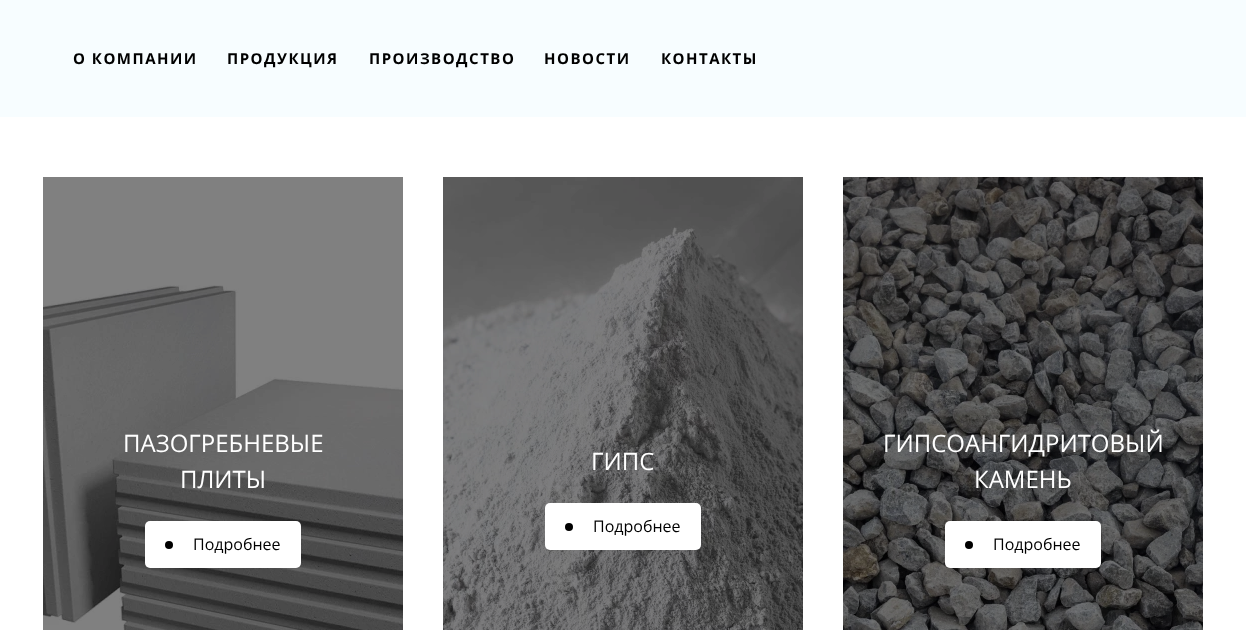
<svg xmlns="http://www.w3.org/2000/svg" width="1246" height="630">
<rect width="100%" height="100%" fill="#f7fdff"/>
<text x="73" y="64" style="font-family:Open Sans;font-size:15px;font-weight:bold;letter-spacing:1.5px;fill:#000">О КОМПАНИИ</text>
<text x="227" y="64" style="font-family:Open Sans;font-size:15px;font-weight:bold;letter-spacing:1.5px;fill:#000">ПРОДУКЦИЯ</text>
<text x="369" y="64" style="font-family:Open Sans;font-size:15px;font-weight:bold;letter-spacing:1.5px;fill:#000">ПРОИЗВОДСТВО</text>
<text x="544" y="64" style="font-family:Open Sans;font-size:15px;font-weight:bold;letter-spacing:1.5px;fill:#000">НОВОСТИ</text>
<text x="661" y="64" style="font-family:Open Sans;font-size:15px;font-weight:bold;letter-spacing:1.5px;fill:#000">КОНТАКТЫ</text>
<rect y="117" width="1246" height="513" fill="#fff"/>
<rect x="43" y="177" width="360" height="108" fill="#808080"/>
<image x="43" y="285" width="360" height="345" href="media/1.png"/>
<text x="123" y="452" style="font-family:Open Sans;font-size:24px;fill:#fff">ПАЗОГРЕБНЕВЫЕ</text>
<text x="180" y="488" style="font-family:Open Sans;font-size:24px;fill:#fff">ПЛИТЫ</text>
<rect x="145" y="521" width="156" height="47" rx="5" fill="#fff"/>
<circle cx="169" cy="545" r="4" fill="#000"/>
<text x="193" y="550" style="font-family:Open Sans;font-size:16px;fill:#000">Подробнее</text>
<image x="443" y="177" width="360" height="453" href="media/2.png"/>
<text x="591" y="470" style="font-family:Open Sans;font-size:24px;fill:#fff">ГИПС</text>
<rect x="545" y="503" width="156" height="47" rx="5" fill="#fff"/>
<circle cx="569" cy="527" r="4" fill="#000"/>
<text x="593" y="532" style="font-family:Open Sans;font-size:16px;fill:#000">Подробнее</text>
<image x="843" y="177" width="360" height="453" href="media/3.png"/>
<text x="883" y="452" style="font-family:Open Sans;font-size:24px;fill:#fff">ГИПСОАНГИДРИТОВЫЙ</text>
<text x="974" y="488" style="font-family:Open Sans;font-size:24px;fill:#fff">КАМЕНЬ</text>
<rect x="945" y="521" width="156" height="47" rx="5" fill="#fff"/>
<circle cx="969" cy="545" r="4" fill="#000"/>
<text x="993" y="550" style="font-family:Open Sans;font-size:16px;fill:#000">Подробнее</text>
</svg>
